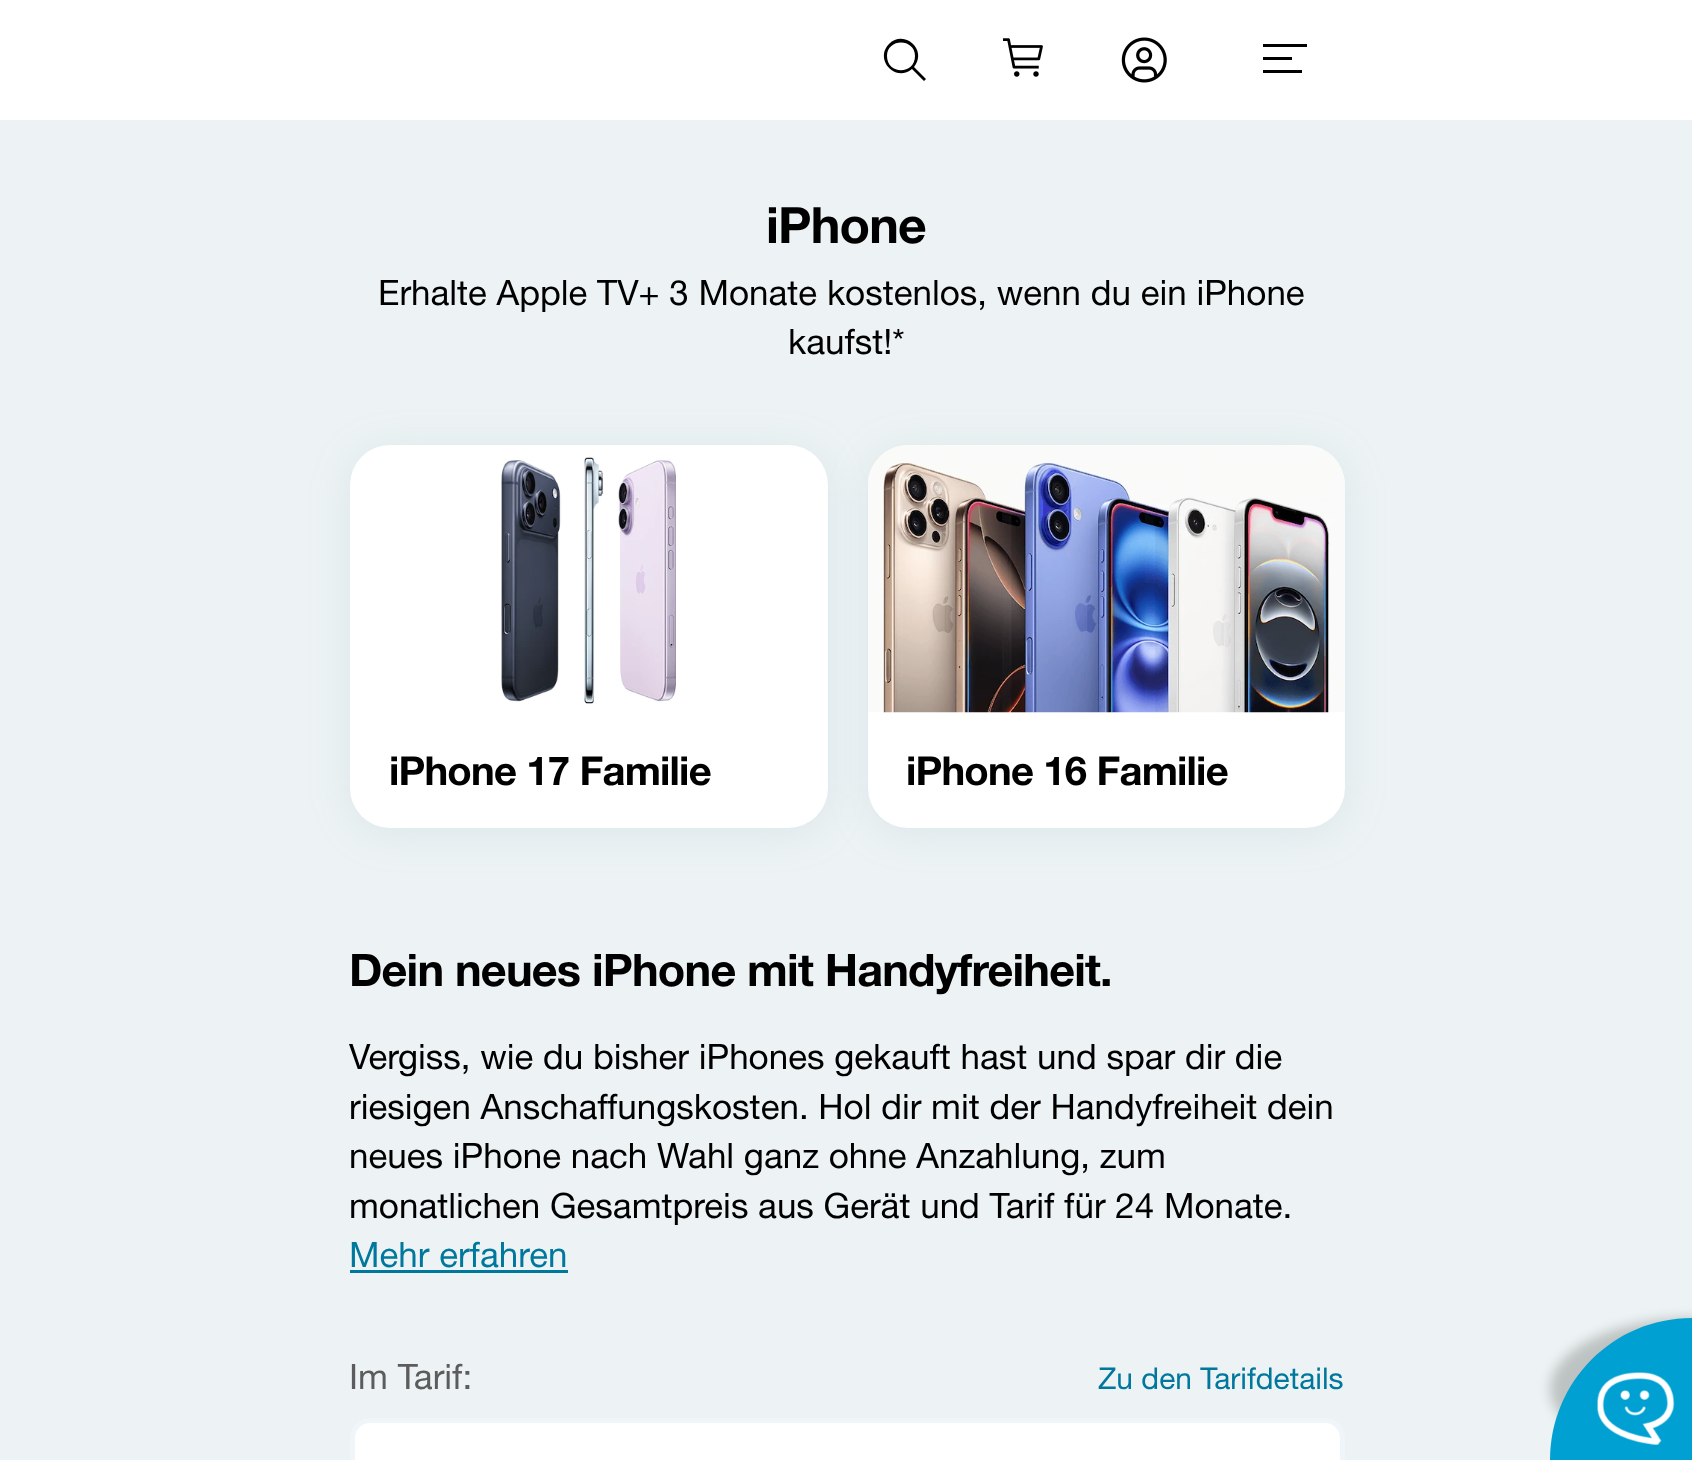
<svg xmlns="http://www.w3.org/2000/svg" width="1692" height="1460">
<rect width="100%" height="100%" fill="#edf3f4"/>
<rect width="1692" height="120" fill="#fff"/>
<path d="M926 79l-12-12c14-17-10-38-25-23c-15 15 6 39 23 25l12 12zm-39-23c0-18 28-18 28 0c0 19-28 19-28 0" fill="#000"/>
<image x="1003" y="38" width="40" height="39" href="media/1.png"/>
<image x="1121" y="37" width="46" height="46" href="media/2.png"/>
<path d="M1263 44h44v3h-44zm0 13h29v3h-29zm0 13h39v3h-39z" fill="#000"/>
<text x="766" y="243" style="font-family:Helvetica Neue;font-size:50px;font-weight:bold;letter-spacing:-0.8px;fill:#000">iPhone</text>
<text x="378" y="305" style="font-family:Helvetica Neue;font-size:35px;fill:#000">Erhalte Apple TV+ 3 Monate kostenlos, wenn du ein iPhone</text>
<text x="788" y="354" style="font-family:Helvetica Neue;font-size:35px;fill:#000">kaufst!*</text>
<rect x="350" y="450" width="478" height="383" rx="40" fill="#73a2b626" filter="blur(20px)"/>
<rect x="350" y="445" width="478" height="383" rx="40" fill="#fff"/>
<image x="501" y="457" width="175" height="247" href="media/3.png"/>
<text x="389" y="785" style="font-family:Helvetica Neue;font-size:40px;font-weight:bold;letter-spacing:-0.8px;fill:#000">iPhone 17 Familie</text>
<rect x="868" y="450" width="477" height="383" rx="40" fill="#73a2b626" filter="blur(20px)"/>
<rect x="868" y="445" width="477" height="383" rx="40" fill="#fff"/>
<image x="868" y="445" width="477" height="268" href="media/4.png"/>
<text x="906" y="785" style="font-family:Helvetica Neue;font-size:40px;font-weight:bold;letter-spacing:-0.8px;fill:#000">iPhone 16 Familie</text>
<text x="349" y="986" style="font-family:Helvetica Neue;font-size:45px;font-weight:bold;letter-spacing:-0.8px;fill:#000">Dein neues iPhone mit Handyfreiheit.</text>
<text x="349" y="1069" style="font-family:Helvetica Neue;font-size:35px;fill:#000">Vergiss, wie du bisher iPhones gekauft hast und spar dir die</text>
<text x="349" y="1119" style="font-family:Helvetica Neue;font-size:35px;fill:#000">riesigen Anschaffungskosten. Hol dir mit der Handyfreiheit dein</text>
<text x="349" y="1168" style="font-family:Helvetica Neue;font-size:35px;fill:#000">neues iPhone nach Wahl ganz ohne Anzahlung, zum</text>
<text x="349" y="1218" style="font-family:Helvetica Neue;font-size:35px;fill:#000">monatlichen Gesamtpreis aus Gerät und Tarif für 24 Monate.</text>
<text x="349" y="1267" style="font-family:Helvetica Neue;font-size:35px;fill:#00779d">Mehr erfahren</text>
<rect x="350" y="1270" width="218" height="3" fill="#00779d"/>
<text x="349" y="1389" style="font-family:Helvetica Neue;font-size:35px;fill:#5c5c5c">Im Tarif:</text>
<text x="1098" y="1389" style="font-family:Helvetica Neue;font-size:30px;fill:#00779d">Zu den Tarifdetails</text>
<rect x="352.5" y="1420.5" width="990" height="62" rx="17.5" fill="#fff" stroke="#eff5f8" stroke-width="5"/>
<rect x="1550" y="1318" width="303" height="142" rx="143" fill="#00000033" filter="blur(6px)"/>
<path d="M1692 1318h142v142h-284c0-78.5 63.5-142 142-142z" fill="#00a0d2"/>
<image x="1597" y="1372" width="78" height="73" href="media/5.png"/>
</svg>
